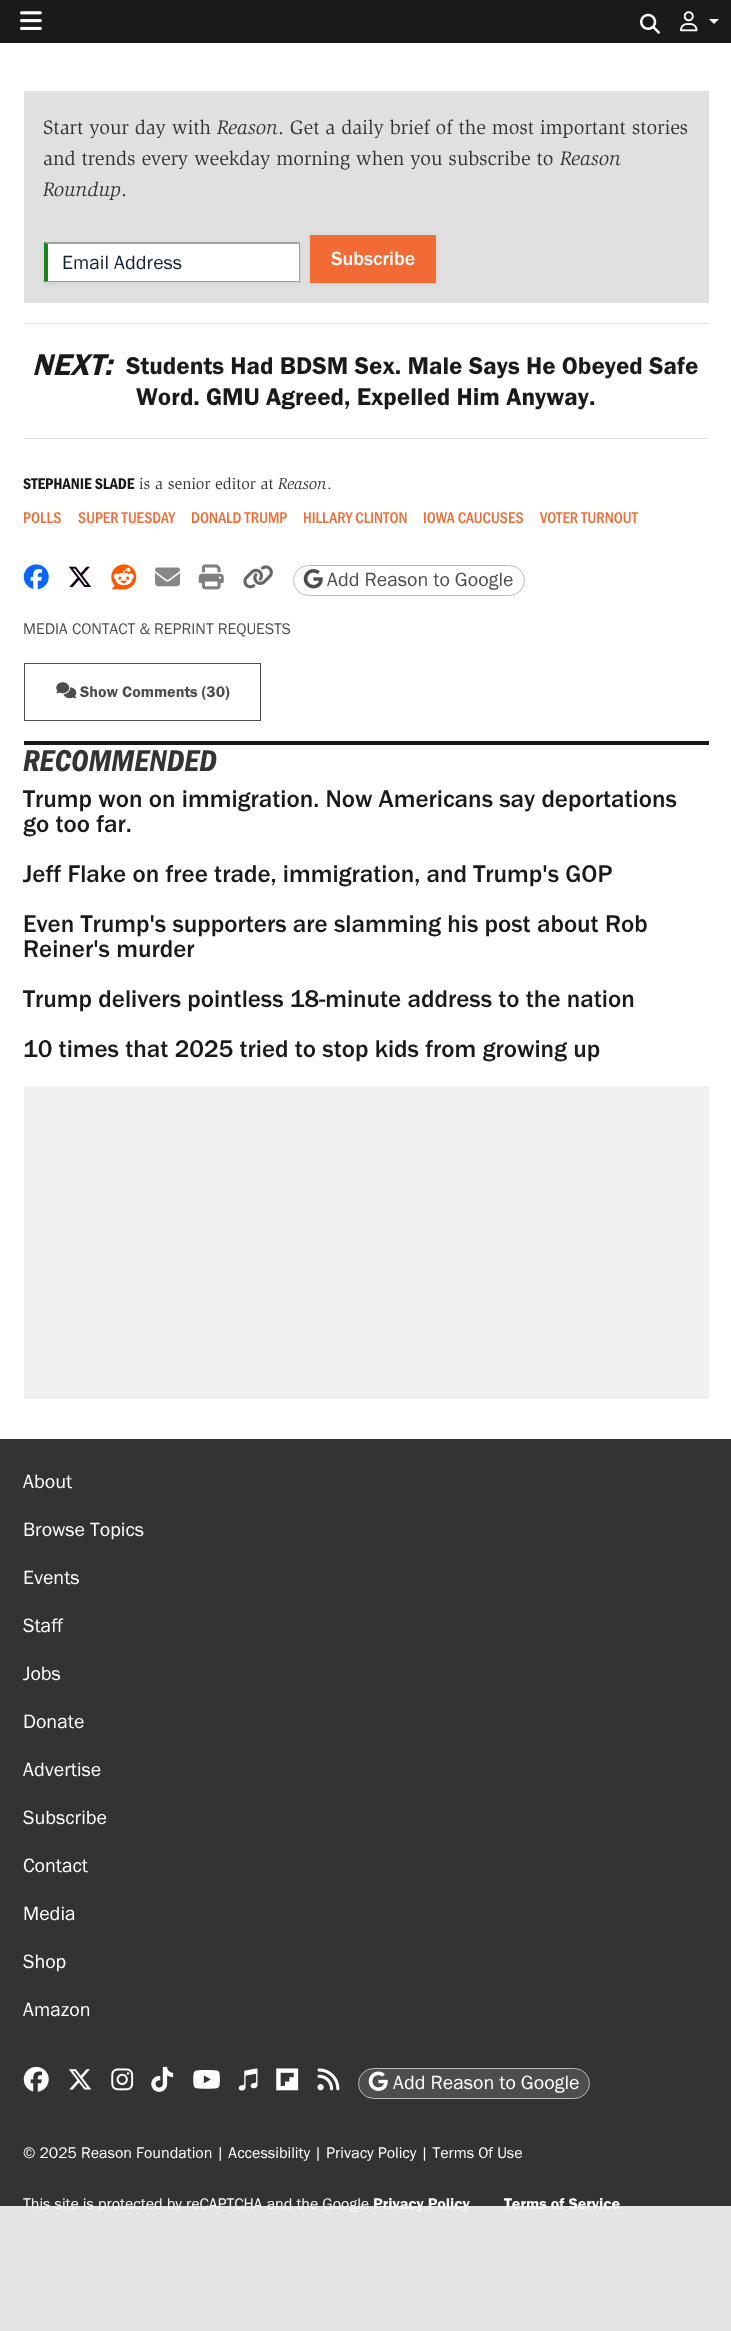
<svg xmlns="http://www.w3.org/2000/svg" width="731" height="2331">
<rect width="100%" height="100%" fill="#fff"/>
<rect width="731" height="43" fill="#1a1a1a"/>
<image x="20" y="11" width="22" height="19" href="media/1.png"/>
<image x="640" y="13" width="20" height="21" href="media/2.png"/>
<image x="680" y="11" width="18" height="21" href="media/3.png"/>
<path d="M709 19h10l-5 5z" fill="#fff"/>
<rect x="24" y="91" width="685" height="212" fill="#e0e0e0"/>
<text x="43" y="134" style="font-family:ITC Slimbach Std;font-size:20px;fill:#333">Start your day with</text>
<text x="217" y="134" style="font-family:ITC Slimbach Std;font-size:20px;font-style:italic;fill:#333">Reason</text>
<text x="278" y="134" style="font-family:ITC Slimbach Std;font-size:20px;fill:#333">. Get a daily brief of the most important stories</text>
<text x="43" y="165" style="font-family:ITC Slimbach Std;font-size:20px;fill:#333">and trends every weekday morning when you subscribe to</text>
<text x="560" y="165" style="font-family:ITC Slimbach Std;font-size:20px;font-style:italic;fill:#333">Reason</text>
<text x="43" y="196" style="font-family:ITC Slimbach Std;font-size:20px;font-style:italic;fill:#333">Roundup</text>
<text x="121" y="196" style="font-family:ITC Slimbach Std;font-size:20px;fill:#333">.</text>
<rect x="44" y="244" width="256" height="40" fill="#12196114" filter="blur(2.5px)"/>
<rect x="48" y="244" width="251" height="37" fill="#fff"/>
<path d="M44 242h256l-1 2h-251z" fill="#a1a1a1"/>
<rect x="299" y="243" width="1" height="40" fill="#a1a1a1"/>
<path d="M300 282h-256l4-1h251z" fill="#a1a1a1"/>
<path d="M44 282v-40l4 2v37z" fill="#1a8419"/>
<text x="62" y="269" style="font-family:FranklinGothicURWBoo;font-size:20px;fill:#112337">Email Address</text>
<rect x="310" y="236" width="126" height="48" fill="#12196114" filter="blur(2.5px)"/>
<rect x="310" y="235" width="126" height="48" fill="#f36b34"/>
<text x="331" y="265" style="font-family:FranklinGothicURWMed;font-size:20px;fill:#fff">Subscribe</text>
<rect x="24" y="323" width="685" height="1" fill="#e0e0e0"/>
<rect x="24" y="438" width="685" height="1" fill="#e0e0e0"/>
<text x="32" y="375" style="font-family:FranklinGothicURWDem;font-size:31.25px;font-style:italic;fill:#1a1a1a">NEXT:</text>
<text x="126" y="374" style="font-family:FranklinGothicURWDem;font-size:25px;fill:#1a1a1a">Students Had BDSM Sex. Male Says He Obeyed Safe</text>
<text x="136" y="405" style="font-family:FranklinGothicURWDem;font-size:25px;fill:#1a1a1a">Word. GMU Agreed, Expelled Him Anyway.</text>
<text x="23" y="489" style="font-family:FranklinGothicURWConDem;font-size:16px;fill:#1a1a1a">STEPHANIE SLADE</text>
<text x="139" y="489" style="font-family:ITC Slimbach Std;font-size:16px;fill:#333">is a senior editor at</text>
<text x="278" y="489" style="font-family:ITC Slimbach Std;font-size:16px;font-style:italic;fill:#333">Reason</text>
<text x="327" y="489" style="font-family:ITC Slimbach Std;font-size:16px;fill:#333">.</text>
<text x="23" y="523" style="font-family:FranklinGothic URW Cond;font-size:16px;font-weight:500;fill:#f36b34">POLLS</text>
<text x="78" y="523" style="font-family:FranklinGothic URW Cond;font-size:16px;font-weight:500;fill:#f36b34">SUPER TUESDAY</text>
<text x="191" y="523" style="font-family:FranklinGothic URW Cond;font-size:16px;font-weight:500;fill:#f36b34">DONALD TRUMP</text>
<text x="303" y="523" style="font-family:FranklinGothic URW Cond;font-size:16px;font-weight:500;fill:#f36b34">HILLARY CLINTON</text>
<text x="423" y="523" style="font-family:FranklinGothic URW Cond;font-size:16px;font-weight:500;fill:#f36b34">IOWA CAUCUSES</text>
<text x="540" y="523" style="font-family:FranklinGothic URW Cond;font-size:16px;font-weight:500;fill:#f36b34">VOTER TURNOUT</text>
<image x="23" y="564" width="26" height="26" href="media/4.png"/>
<image x="69" y="566" width="23" height="21" href="media/5.png"/>
<image x="111" y="564" width="26" height="26" href="media/6.png"/>
<image x="155" y="567" width="25" height="20" href="media/7.png"/>
<image x="198" y="564" width="26" height="26" href="media/8.png"/>
<image x="243" y="565" width="30" height="24" href="media/9.png"/>
<rect x="293.5" y="565.5" width="231" height="30" rx="15" fill="none" stroke="#bababa"/>
<image x="303" y="569" width="20" height="20" href="media/10.png"/>
<text x="327" y="586" style="font-family:FranklinGothicURWBoo;font-size:20px;fill:#4d4d4d">Add Reason to Google</text>
<text x="23" y="634" style="font-family:FranklinGothicURWBoo;font-size:16px;fill:#4d4d4d">MEDIA CONTACT &amp; REPRINT REQUESTS</text>
<rect x="24.5" y="663.5" width="236" height="57" fill="none" stroke="#4d4d4d"/>
<image x="56" y="682" width="21" height="17" href="media/11.png"/>
<text x="80" y="697" style="font-family:FranklinGothicURWDem;font-size:16px;fill:#4d4d4d">Show Comments (30)</text>
<rect x="24" y="741" width="685" height="4" fill="#1a1a1a"/>
<text x="23" y="771" style="font-family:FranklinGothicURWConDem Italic;font-size:31.25px;font-style:italic;fill:#333">RECOMMENDED</text>
<text x="23" y="807" style="font-family:FranklinGothicURWMed;font-size:25px;fill:#1a1a1a">Trump won on immigration. Now Americans say deportations</text>
<text x="23" y="832" style="font-family:FranklinGothicURWMed;font-size:25px;fill:#1a1a1a">go too far.</text>
<text x="23" y="882" style="font-family:FranklinGothicURWMed;font-size:25px;fill:#1a1a1a">Jeff Flake on free trade, immigration, and Trump's GOP</text>
<text x="23" y="932" style="font-family:FranklinGothicURWMed;font-size:25px;fill:#1a1a1a">Even Trump's supporters are slamming his post about Rob</text>
<text x="23" y="957" style="font-family:FranklinGothicURWMed;font-size:25px;fill:#1a1a1a">Reiner's murder</text>
<text x="23" y="1007" style="font-family:FranklinGothicURWMed;font-size:25px;fill:#1a1a1a">Trump delivers pointless 18-minute address to the nation</text>
<text x="23" y="1057" style="font-family:FranklinGothicURWMed;font-size:25px;fill:#1a1a1a">10 times that 2025 tried to stop kids from growing up</text>
<rect x="24" y="1086" width="685" height="313" fill="#f0f0f0"/>
<rect y="1439" width="731" height="892" fill="#333"/>
<text x="23" y="1488" style="font-family:FranklinGothicURWBoo;font-size:20px;fill:#fff">About</text>
<text x="23" y="1536" style="font-family:FranklinGothicURWBoo;font-size:20px;fill:#fff">Browse Topics</text>
<text x="23" y="1584" style="font-family:FranklinGothicURWBoo;font-size:20px;fill:#fff">Events</text>
<text x="23" y="1632" style="font-family:FranklinGothicURWBoo;font-size:20px;fill:#fff">Staff</text>
<text x="23" y="1680" style="font-family:FranklinGothicURWBoo;font-size:20px;fill:#fff">Jobs</text>
<text x="23" y="1728" style="font-family:FranklinGothicURWBoo;font-size:20px;fill:#fff">Donate</text>
<text x="23" y="1776" style="font-family:FranklinGothicURWBoo;font-size:20px;fill:#fff">Advertise</text>
<text x="23" y="1824" style="font-family:FranklinGothicURWBoo;font-size:20px;fill:#fff">Subscribe</text>
<text x="23" y="1872" style="font-family:FranklinGothicURWBoo;font-size:20px;fill:#fff">Contact</text>
<text x="23" y="1920" style="font-family:FranklinGothicURWBoo;font-size:20px;fill:#fff">Media</text>
<text x="23" y="1968" style="font-family:FranklinGothicURWBoo;font-size:20px;fill:#fff">Shop</text>
<text x="23" y="2016" style="font-family:FranklinGothicURWBoo;font-size:20px;fill:#fff">Amazon</text>
<image x="23" y="2066" width="26" height="26" href="media/12.png"/>
<image x="68" y="2069" width="24" height="21" href="media/13.png"/>
<image x="111" y="2068" width="23" height="23" href="media/14.png"/>
<image x="151" y="2066" width="23" height="26" href="media/15.png"/>
<image x="193" y="2070" width="27" height="19" href="media/16.png"/>
<image x="238" y="2068" width="20" height="23" href="media/17.png"/>
<image x="276" y="2068" width="23" height="23" href="media/18.png"/>
<image x="317" y="2068" width="23" height="23" href="media/19.png"/>
<rect x="358.5" y="2068.5" width="231" height="30" rx="15" fill="#4d4d4d" stroke="#bababa"/>
<image x="368" y="2071" width="20" height="20" href="media/20.png"/>
<text x="393" y="2089" style="font-family:FranklinGothicURWBoo;font-size:20px;fill:#fff">Add Reason to Google</text>
<text x="23" y="2158" style="font-family:FranklinGothicURWBoo;font-size:16px;fill:#fff">© 2025 Reason Foundation | Accessibility | Privacy Policy | Terms Of Use</text>
<text x="23" y="2209" style="font-family:FranklinGothicURWBoo;font-size:16px;fill:#fff">This site is protected by reCAPTCHA and the Google</text>
<text x="373" y="2209" style="font-family:FranklinGothicURWDem;font-size:16px;fill:#fff">Privacy Policy</text>
<text x="504" y="2209" style="font-family:FranklinGothicURWDem;font-size:16px;fill:#fff">Terms of Service</text>
<rect y="2206" width="731" height="125" fill="#f7f7f7e6"/>
</svg>
